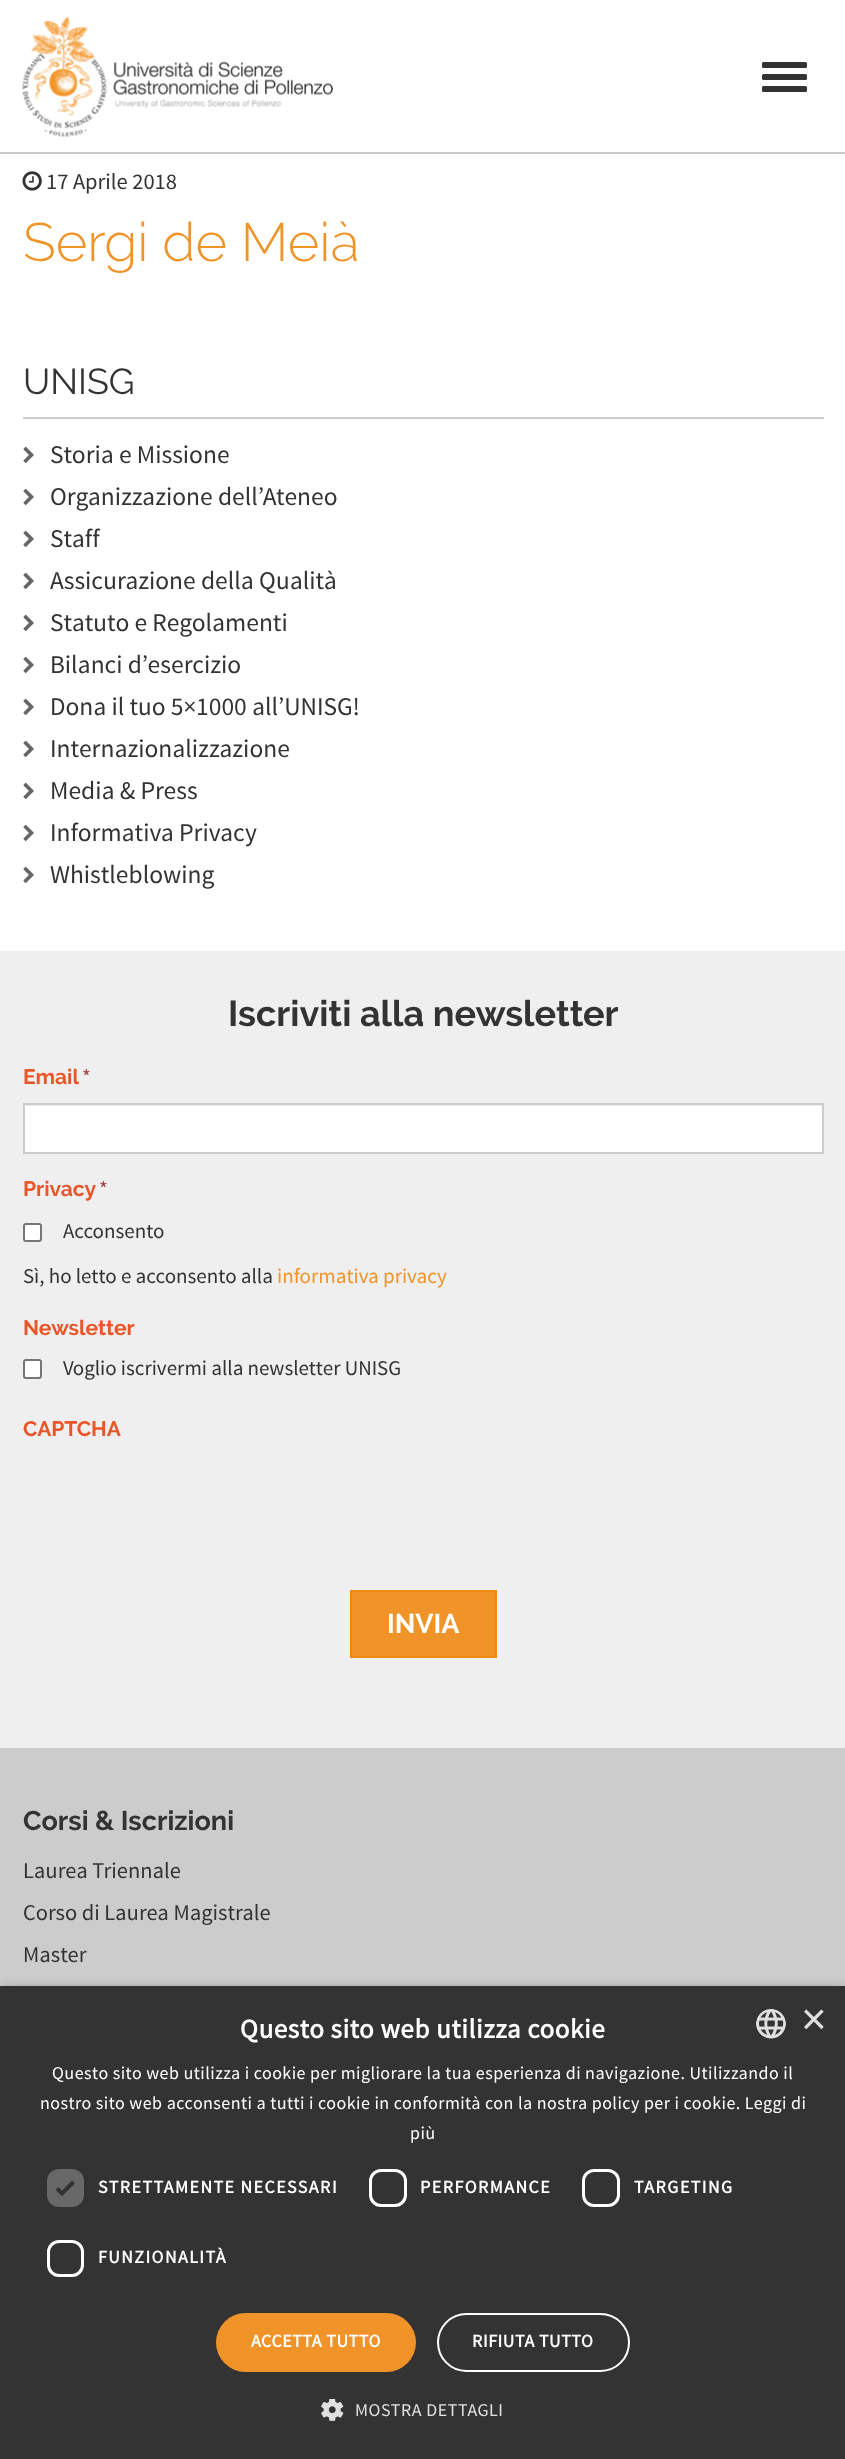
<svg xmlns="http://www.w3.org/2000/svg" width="845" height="2459">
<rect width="100%" height="100%" fill="#fff"/>
<rect y="152" width="845" height="2" fill="#cbcbcb"/>
<image x="22" y="16" width="311" height="121" href="media/1.png"/>
<rect x="762" y="62" width="45" height="6" rx="1.5" fill="#333"/>
<rect x="762" y="74" width="45" height="6" rx="1.5" fill="#333"/>
<rect x="762" y="86" width="45" height="6" rx="1.5" fill="#333"/>
<image x="22" y="171" width="20" height="20" href="media/2.png"/>
<text x="46" y="189" style="font-family:Source Sans Pro;font-size:22.5px;fill:#343234">17 Aprile 2018</text>
<text x="23" y="261" style="font-family:Raleway;font-size:54px;font-weight:300;fill:#f09429">Sergi de Meià</text>
<rect x="23" y="417" width="801" height="2" fill="#cbcbcb"/>
<text x="23" y="394" style="font-family:Raleway;font-size:36px;fill:#343234">UNISG</text>
<image x="23" y="446" width="11" height="17" href="media/3.png"/>
<text x="50" y="463" style="font-family:Source Sans Pro;font-size:25.5px;fill:#343234">Storia e Missione</text>
<image x="23" y="488" width="11" height="17" href="media/3.png"/>
<text x="50" y="505" style="font-family:Source Sans Pro;font-size:25.5px;fill:#343234">Organizzazione dell’Ateneo</text>
<image x="23" y="530" width="11" height="17" href="media/3.png"/>
<text x="50" y="547" style="font-family:Source Sans Pro;font-size:25.5px;fill:#343234">Staff</text>
<image x="23" y="572" width="11" height="17" href="media/3.png"/>
<text x="50" y="589" style="font-family:Source Sans Pro;font-size:25.5px;fill:#343234">Assicurazione della Qualità</text>
<image x="23" y="614" width="11" height="17" href="media/3.png"/>
<text x="50" y="631" style="font-family:Source Sans Pro;font-size:25.5px;fill:#343234">Statuto e Regolamenti</text>
<image x="23" y="656" width="11" height="17" href="media/3.png"/>
<text x="50" y="673" style="font-family:Source Sans Pro;font-size:25.5px;fill:#343234">Bilanci d’esercizio</text>
<image x="23" y="698" width="11" height="17" href="media/3.png"/>
<text x="50" y="715" style="font-family:Source Sans Pro;font-size:25.5px;fill:#343234">Dona il tuo 5×1000 all’UNISG!</text>
<image x="23" y="740" width="11" height="17" href="media/3.png"/>
<text x="50" y="757" style="font-family:Source Sans Pro;font-size:25.5px;fill:#343234">Internazionalizzazione</text>
<image x="23" y="782" width="11" height="17" href="media/3.png"/>
<text x="50" y="799" style="font-family:Source Sans Pro;font-size:25.5px;fill:#343234">Media &amp; Press</text>
<image x="23" y="824" width="11" height="17" href="media/3.png"/>
<text x="50" y="841" style="font-family:Source Sans Pro;font-size:25.5px;fill:#343234">Informativa Privacy</text>
<image x="23" y="866" width="11" height="17" href="media/3.png"/>
<text x="50" y="883" style="font-family:Source Sans Pro;font-size:25.5px;fill:#343234">Whistleblowing</text>
<rect y="951" width="845" height="797" fill="#efefef"/>
<text x="228" y="1026" style="font-family:Raleway;font-size:36px;font-weight:bold;fill:#343234">Iscriviti alla newsletter</text>
<text x="23" y="1084" style="font-family:Raleway;font-size:21px;font-weight:bold;fill:#e85629">Email</text>
<text x="82" y="1084" style="font-family:Source Sans Pro;font-size:21px;fill:#a94442">*</text>
<rect x="25" y="1106" width="797" height="46" fill="#fff"/>
<rect x="24" y="1105" width="798" height="1" fill="#ececec"/>
<rect x="24" y="1104" width="799" height="49" fill="none" stroke="#ccc" stroke-width="2"/>
<text x="23" y="1196" style="font-family:Raleway;font-size:21px;font-weight:bold;fill:#e85629">Privacy</text>
<text x="99" y="1196" style="font-family:Source Sans Pro;font-size:21px;fill:#a94442">*</text>
<rect x="24" y="1224" width="17" height="17" rx="2" fill="#fff" stroke="#767676" stroke-width="2"/>
<text x="63" y="1238" style="font-family:Source Sans Pro;font-size:21px;fill:#343234">Acconsento</text>
<text x="23" y="1283" style="font-family:Source Sans Pro;font-size:21px;fill:#343234">Sì, ho letto e acconsento alla</text>
<text x="277" y="1283" style="font-family:Source Sans Pro;font-size:21px;fill:#f09429">informativa privacy</text>
<text x="23" y="1335" style="font-family:Raleway;font-size:21px;font-weight:bold;fill:#e85629">Newsletter</text>
<rect x="24" y="1360" width="17" height="18" rx="2" fill="#fff" stroke="#767676" stroke-width="2"/>
<text x="63" y="1375" style="font-family:Source Sans Pro;font-size:21px;fill:#343234">Voglio iscrivermi alla newsletter UNISG</text>
<text x="23" y="1436" style="font-family:Raleway;font-size:21px;font-weight:bold;fill:#e85629">CAPTCHA</text>
<rect x="351" y="1591" width="145" height="66" fill="#f09429" stroke="#e81" stroke-width="2"/>
<text x="387" y="1633" style="font-family:Raleway;font-size:27px;font-weight:bold;fill:#fff">INVIA</text>
<rect y="1748" width="845" height="238" fill="#ccc"/>
<text x="23" y="1830" style="font-family:Raleway;font-size:27px;font-weight:bold;fill:#343234">Corsi &amp; Iscrizioni</text>
<text x="23" y="1878" style="font-family:Source Sans Pro;font-size:22.5px;fill:#343234">Laurea Triennale</text>
<text x="23" y="1920" style="font-family:Source Sans Pro;font-size:22.5px;fill:#343234">Corso di Laurea Magistrale</text>
<text x="23" y="1962" style="font-family:Source Sans Pro;font-size:22.5px;fill:#343234">Master</text>
<rect x="2" y="1989" width="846" height="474" fill="#00000059" filter="blur(6px)"/>
<rect y="1986" width="845" height="473" fill="#333"/>
<text x="240" y="2038" style="font-family:Source Sans Pro;font-size:27px;font-weight:bold;letter-spacing:0.6px;fill:#fff">Questo sito web utilizza cookie</text>
<image x="756" y="2009" width="30" height="30" href="media/4.png"/>
<text x="801" y="2034" style="font-family:Liberation Sans;font-size:44px;fill:#e0e0e0">×</text>
<text x="52" y="2079" style="font-family:Source Sans Pro;font-size:18px;letter-spacing:0.45px;fill:#fff">Questo sito web utilizza i cookie per migliorare la tua esperienza di navigazione. Utilizzando il</text>
<text x="40" y="2109" style="font-family:Source Sans Pro;font-size:18px;letter-spacing:0.45px;fill:#fff">nostro sito web acconsenti a tutti i cookie in conformità con la nostra policy per i cookie. Leggi di</text>
<text x="410" y="2139" style="font-family:Source Sans Pro;font-size:18px;letter-spacing:0.45px;fill:#fff">più</text>
<rect x="47" y="2169" width="37" height="38" rx="12" fill="#686868"/>
<path d="M57 2188.5l5 5l11.5-11.5" fill="none" stroke="#333" stroke-width="3.9"/>
<text x="98" y="2193" style="font-family:Source Sans Pro;font-size:18px;font-weight:bold;letter-spacing:1.5px;fill:#fff">STRETTAMENTE NECESSARI</text>
<rect x="370.5" y="2170.5" width="35" height="35" rx="10.5" fill="none" stroke="#fff" stroke-width="3"/>
<text x="420" y="2193" style="font-family:Source Sans Pro;font-size:18px;font-weight:bold;letter-spacing:1.5px;fill:#fff">PERFORMANCE</text>
<rect x="583.5" y="2170.5" width="35" height="35" rx="10.5" fill="none" stroke="#fff" stroke-width="3"/>
<text x="634" y="2193" style="font-family:Source Sans Pro;font-size:18px;font-weight:bold;letter-spacing:1.5px;fill:#fff">TARGETING</text>
<rect x="48.5" y="2241.5" width="34" height="34" rx="10.5" fill="none" stroke="#fff" stroke-width="3"/>
<text x="98" y="2263" style="font-family:Source Sans Pro;font-size:18px;font-weight:bold;letter-spacing:1.5px;fill:#fff">FUNZIONALITÀ</text>
<rect x="216" y="2313" width="200" height="59" rx="29.5" fill="#f09429"/>
<text x="251" y="2347" style="font-family:Source Sans Pro;font-size:18px;font-weight:bold;letter-spacing:0.6px;fill:#fff">ACCETTA TUTTO</text>
<rect x="438" y="2314" width="191" height="57" rx="28.5" fill="none" stroke="#fff" stroke-width="2"/>
<text x="472" y="2347" style="font-family:Source Sans Pro;font-size:18px;font-weight:bold;letter-spacing:0.6px;fill:#fff">RIFIUTA TUTTO</text>
<image x="321" y="2399" width="23" height="22" href="media/5.png"/>
<text x="355" y="2416" style="font-family:Source Sans Pro;font-size:18px;letter-spacing:0.6px;fill:#e0e0e0">MOSTRA DETTAGLI</text>
</svg>
